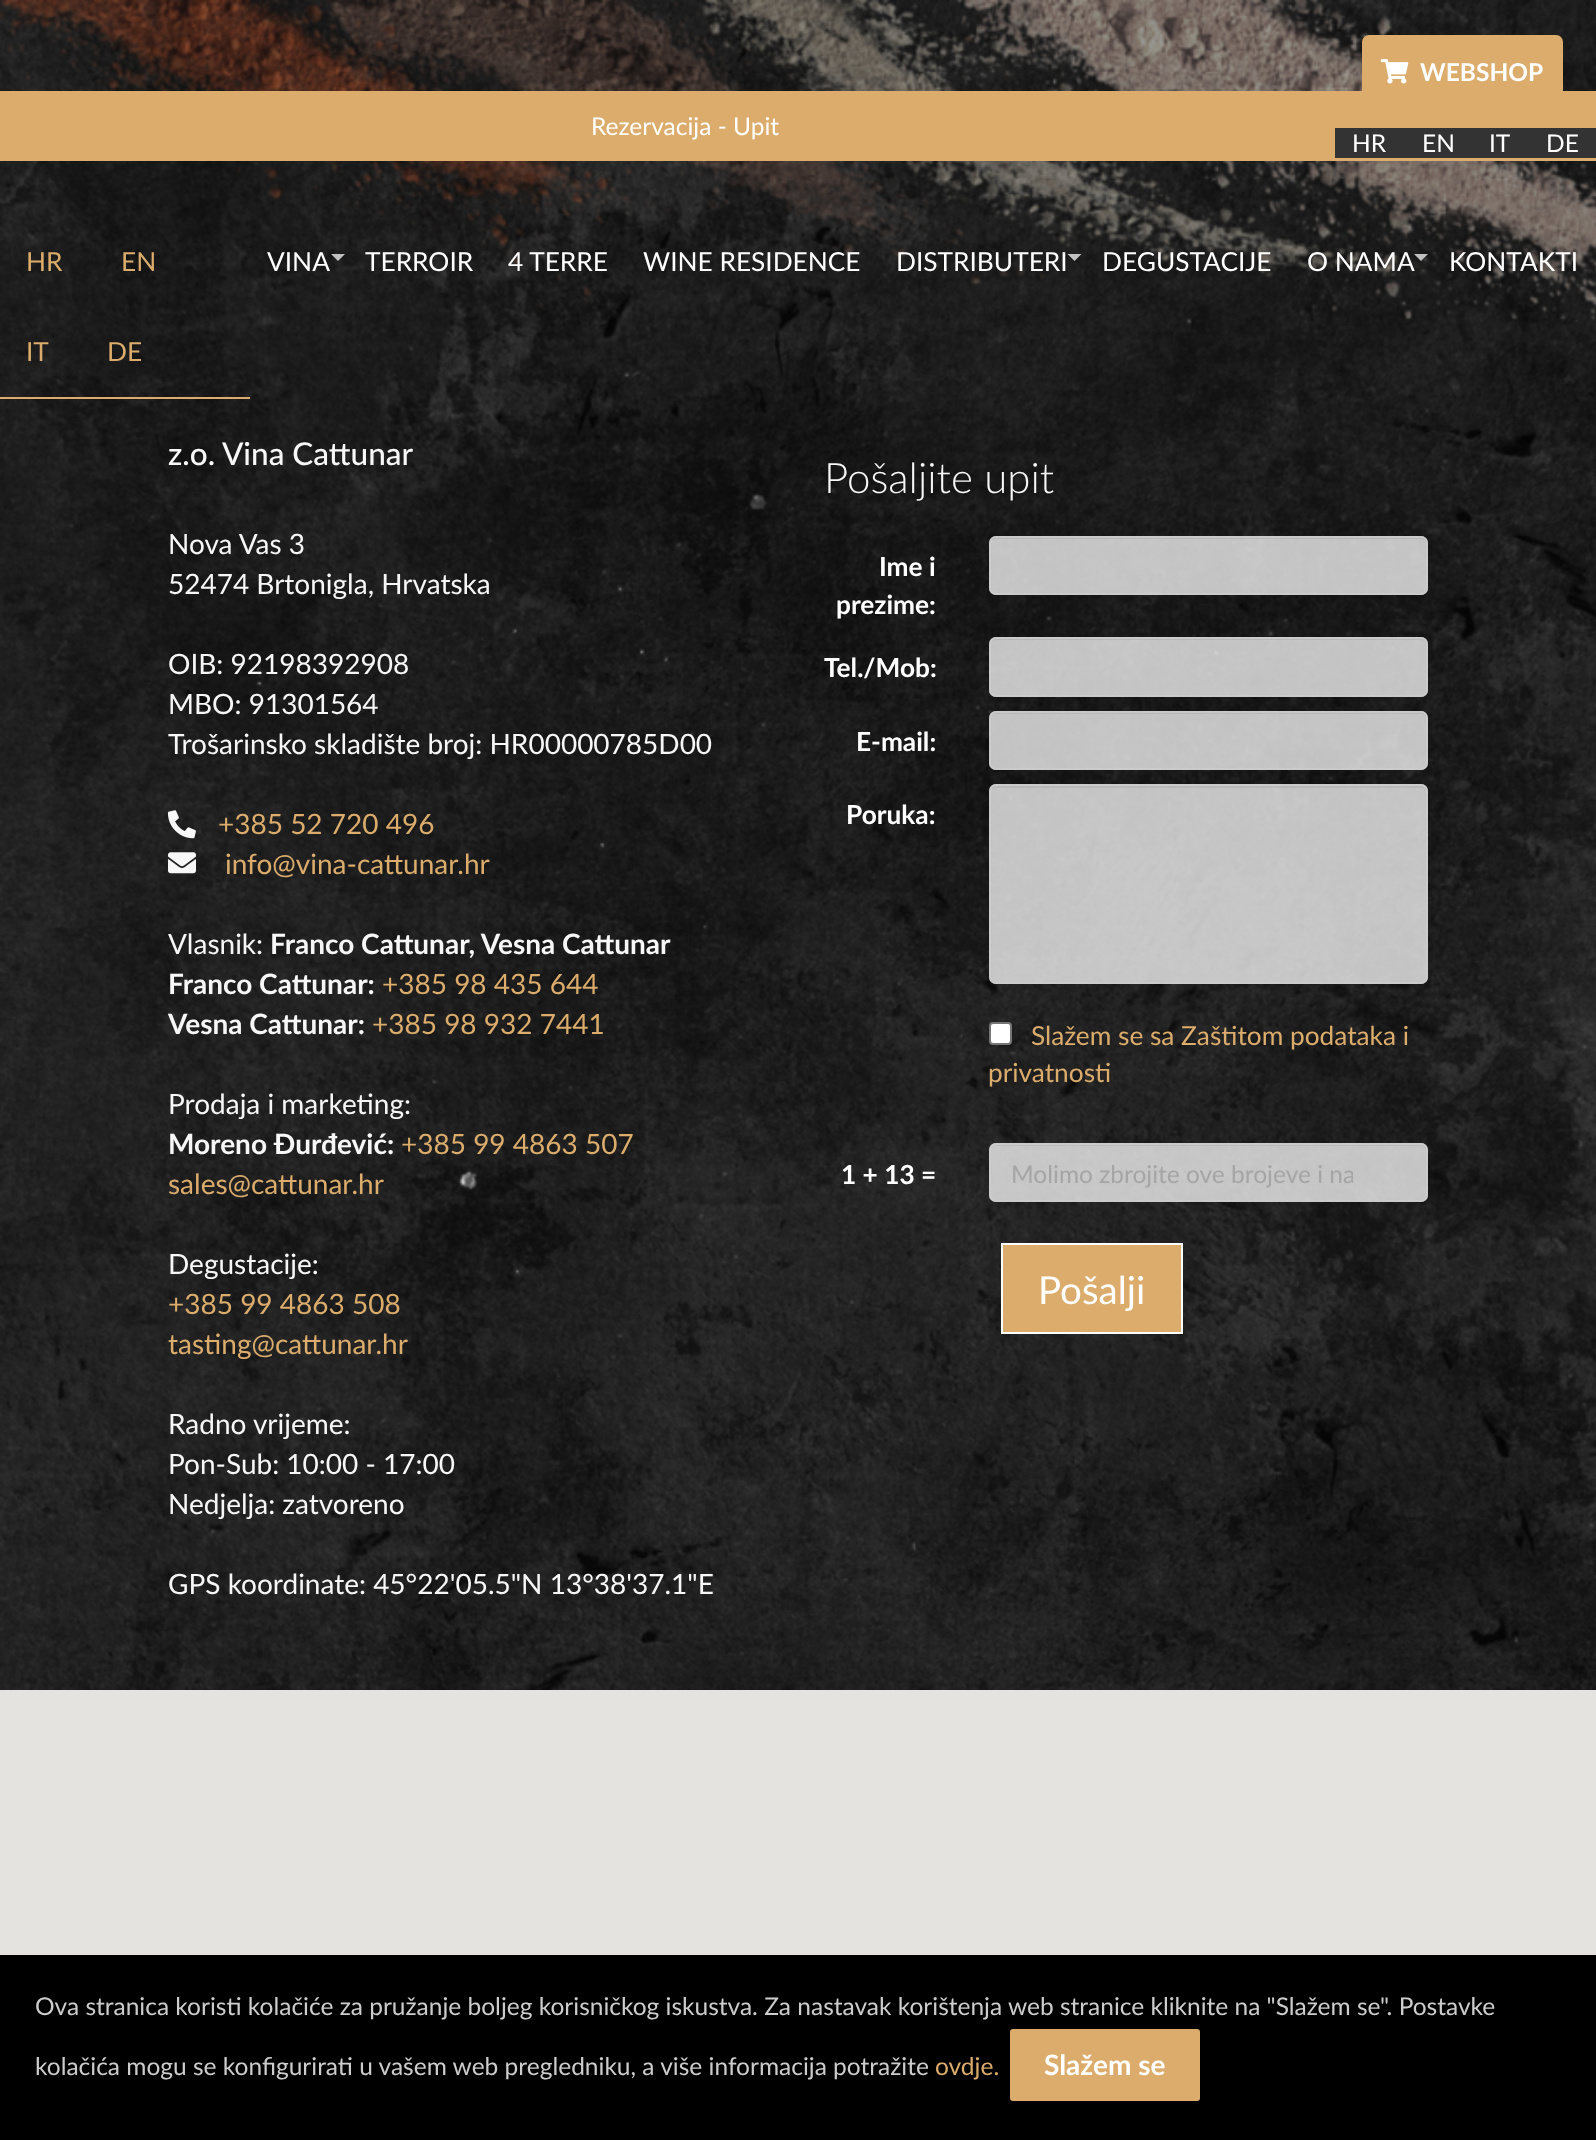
<svg xmlns="http://www.w3.org/2000/svg" width="1596" height="2140">
<defs>
<clipPath id="clip1"><rect x="1012" y="1159" width="341" height="29"/></clipPath>
</defs>
<rect width="100%" height="100%" fill="#fff"/>
<image x="0" y="0" width="1596" height="1690" href="media/1.png"/>
<image x="0" y="0" width="1596" height="322" href="media/2.png"/>
<rect y="91" width="1596" height="70" fill="#dbac6b"/>
<rect x="1362" y="35" width="201" height="74" rx="7" fill="#dbac6b"/>
<image x="1380" y="59" width="29" height="25" href="media/3.png"/>
<text x="1420" y="81" style="font-family:Lato;font-size:24.5px;font-weight:bold;fill:#fff">WEBSHOP</text>
<rect x="1335" y="128" width="261" height="30" fill="#333"/>
<text x="1352" y="152" style="font-family:Lato;font-size:24.5px;fill:#fff">HR</text>
<text x="1422" y="152" style="font-family:Lato;font-size:24.5px;fill:#fff">EN</text>
<text x="1489" y="152" style="font-family:Lato;font-size:24.5px;fill:#fff">IT</text>
<text x="1546" y="152" style="font-family:Lato;font-size:24.5px;fill:#fff">DE</text>
<rect y="397" width="250" height="2" fill="#dbac6b"/>
<text x="26" y="271" style="font-family:Lato;font-size:26.25px;fill:#dbac6b">HR</text>
<text x="121" y="271" style="font-family:Lato;font-size:26.25px;fill:#dbac6b">EN</text>
<text x="26" y="361" style="font-family:Lato;font-size:26.25px;fill:#dbac6b">IT</text>
<text x="107" y="361" style="font-family:Lato;font-size:26.25px;fill:#dbac6b">DE</text>
<text x="267" y="271" style="font-family:Lato;font-size:26.25px;fill:#fff">VINA</text>
<path d="M331 254h14l-7 7z" fill="#c1c1c1"/>
<text x="365" y="271" style="font-family:Lato;font-size:26.25px;fill:#fff">TERROIR</text>
<text x="508" y="271" style="font-family:Lato;font-size:26.25px;fill:#fff">4 TERRE</text>
<text x="643" y="271" style="font-family:Lato;font-size:26.25px;fill:#fff">WINE RESIDENCE</text>
<text x="896" y="271" style="font-family:Lato;font-size:26.25px;fill:#fff">DISTRIBUTERI</text>
<path d="M1067.5 254h14l-7 7z" fill="#c1c1c1"/>
<text x="1102" y="271" style="font-family:Lato;font-size:26.25px;fill:#fff">DEGUSTACIJE</text>
<text x="1307" y="271" style="font-family:Lato;font-size:26.25px;fill:#fff">O NAMA</text>
<path d="M1414 254h14l-7 7z" fill="#c1c1c1"/>
<text x="1449" y="271" style="font-family:Lato;font-size:26.25px;fill:#fff">KONTAKTI</text>
<text x="591" y="135" style="font-family:Lato;font-size:24.5px;fill:#fff">Rezervacija - Upit</text>
<text x="168" y="465" style="font-family:Lato;font-size:31.5px;font-weight:500;fill:#f7f7f7">z.o. Vina Cattunar</text>
<text x="168" y="554" style="font-family:Lato;font-size:28px;fill:#f7f7f7">Nova Vas 3</text>
<text x="168" y="594" style="font-family:Lato;font-size:28px;fill:#f7f7f7">52474 Brtonigla, Hrvatska</text>
<text x="168" y="674" style="font-family:Lato;font-size:28px;fill:#f7f7f7">OIB: 92198392908</text>
<text x="168" y="714" style="font-family:Lato;font-size:28px;fill:#f7f7f7">MBO: 91301564</text>
<text x="168" y="754" style="font-family:Lato;font-size:28px;fill:#f7f7f7">Trošarinsko skladište broj: HR00000785D00</text>
<image x="167" y="810" width="29" height="29" href="media/4.png"/>
<text x="218" y="834" style="font-family:Lato;font-size:28px;fill:#dbac6b">+385 52 720 496</text>
<image x="168" y="852" width="28" height="22" href="media/5.png"/>
<text x="225" y="874" style="font-family:Lato;font-size:28px;fill:#dbac6b">info@vina-cattunar.hr</text>
<text x="168" y="954" style="font-family:Lato;font-size:28px;fill:#f7f7f7">Vlasnik:</text>
<text x="270" y="954" style="font-family:Lato;font-size:28px;font-weight:bold;fill:#f7f7f7">Franco Cattunar, Vesna Cattunar</text>
<text x="168" y="994" style="font-family:Lato;font-size:28px;font-weight:bold;fill:#f7f7f7">Franco Cattunar:</text>
<text x="382" y="994" style="font-family:Lato;font-size:28px;fill:#dbac6b">+385 98 435 644</text>
<text x="168" y="1034" style="font-family:Lato;font-size:28px;font-weight:bold;fill:#f7f7f7">Vesna Cattunar:</text>
<text x="372" y="1034" style="font-family:Lato;font-size:28px;fill:#dbac6b">+385 98 932 7441</text>
<text x="168" y="1114" style="font-family:Lato;font-size:28px;fill:#f7f7f7">Prodaja i marketing:</text>
<text x="168" y="1154" style="font-family:Lato;font-size:28px;font-weight:bold;fill:#f7f7f7">Moreno Đurđević:</text>
<text x="401" y="1154" style="font-family:Lato;font-size:28px;fill:#dbac6b">+385 99 4863 507</text>
<text x="168" y="1194" style="font-family:Lato;font-size:28px;fill:#dbac6b">sales@cattunar.hr</text>
<text x="168" y="1274" style="font-family:Lato;font-size:28px;fill:#f7f7f7">Degustacije:</text>
<text x="168" y="1314" style="font-family:Lato;font-size:28px;fill:#dbac6b">+385 99 4863 508</text>
<text x="168" y="1354" style="font-family:Lato;font-size:28px;fill:#dbac6b">tasting@cattunar.hr</text>
<text x="168" y="1434" style="font-family:Lato;font-size:28px;fill:#f7f7f7">Radno vrijeme:</text>
<text x="168" y="1474" style="font-family:Lato;font-size:28px;fill:#f7f7f7">Pon-Sub: 10:00 - 17:00</text>
<text x="168" y="1514" style="font-family:Lato;font-size:28px;fill:#f7f7f7">Nedjelja: zatvoreno</text>
<text x="168" y="1594" style="font-family:Lato;font-size:28px;fill:#f7f7f7">GPS koordinate: 45°22'05.5"N 13°38'37.1"E</text>
<text x="824" y="493" style="font-family:Lato;font-size:42px;font-weight:300;fill:#f7f7f7">Pošaljite upit</text>
<text x="879" y="576" style="font-family:Lato;font-size:26.25px;font-weight:bold;fill:#fff">Ime i</text>
<text x="836" y="614" style="font-family:Lato;font-size:26.25px;font-weight:bold;fill:#fff">prezime:</text>
<rect x="989" y="536" width="439" height="59" rx="7" fill="#ffffffbf"/>
<path d="M996 539h425c3 0 5 2 5 5c0-3-1-7-5-7h-425c-2 0-5 2-5 4c1-1 3-2 5-2z" fill="#0000000f"/>
<rect x="990" y="537" width="437" height="57" rx="6" fill="none" stroke="#ccccccbf" stroke-width="2"/>
<text x="824" y="677" style="font-family:Lato;font-size:26.25px;font-weight:bold;fill:#fff">Tel./Mob:</text>
<rect x="989" y="637" width="439" height="60" rx="7" fill="#ffffffbf"/>
<path d="M996 640h425c3 0 5 3 5 6v-2c0-3-2-5-5-5h-425c-2 0-4 2-5 4c1-2 3-3 5-3z" fill="#0000000f"/>
<rect x="990" y="638" width="437" height="58" rx="6" fill="none" stroke="#ccccccbf" stroke-width="2"/>
<text x="856" y="751" style="font-family:Lato;font-size:26.25px;font-weight:bold;fill:#fff">E-mail:</text>
<rect x="989" y="711" width="439" height="59" rx="7" fill="#ffffffbf"/>
<path d="M996 714h425c3 0 5 2 5 5c0-3-1-7-5-7h-425c-2 0-5 2-5 4c1-1 3-2 5-2z" fill="#0000000f"/>
<rect x="990" y="712" width="437" height="57" rx="6" fill="none" stroke="#ccccccbf" stroke-width="2"/>
<text x="846" y="824" style="font-family:Lato;font-size:26.25px;font-weight:bold;fill:#fff">Poruka:</text>
<rect x="989" y="784" width="439" height="200" rx="7" fill="#ffffffbf"/>
<path d="M996 788h425c3 0 5 2 5 5c0-3-1-7-5-7h-425c-2 0-5 2-5 4c1-1 3-2 5-2z" fill="#0000000f"/>
<rect x="990" y="785" width="437" height="198" rx="6" fill="none" stroke="#ccccccbf" stroke-width="2"/>
<rect x="990" y="1023" width="21" height="21" rx="3" fill="#fff" stroke="#767676" stroke-width="2"/>
<text x="1031" y="1045" style="font-family:Lato;font-size:26.25px;fill:#dbac6b">Slažem se sa Zaštitom podataka i</text>
<text x="988" y="1082" style="font-family:Lato;font-size:26.25px;fill:#dbac6b">privatnosti</text>
<text x="841" y="1184" style="font-family:Lato;font-size:26.25px;font-weight:bold;fill:#fff">1 + 13 =</text>
<rect x="989" y="1143" width="439" height="59" rx="7" fill="#ffffffbf"/>
<path d="M996 1146h425c3 0 5 3 5 6v-2c0-3-2-5-5-5h-425c-2 0-4 2-5 4c1-2 3-3 5-3z" fill="#0000000f"/>
<rect x="990" y="1144" width="437" height="57" rx="6" fill="none" stroke="#ccccccbf" stroke-width="2"/>
<g clip-path="url(#clip1)">
<text x="1011" y="1183" style="font-family:Lato;font-size:24.5px;fill:#a5a5a5">Molimo zbrojite ove brojeve i na</text>
</g>
<rect x="1002" y="1244" width="180" height="89" fill="#dbac6b" stroke="#fff" stroke-width="2"/>
<text x="1038" y="1304" style="font-family:Lato;font-size:38.5px;fill:#fff">Pošalji</text>
<rect y="1690" width="1596" height="265" fill="#e5e3df"/>
<rect y="1955" width="1596" height="185" fill="#000"/>
<text x="35" y="2015" style="font-family:Lato;font-size:24.5px;fill:#ccc">Ova stranica koristi kolačiće za pružanje boljeg korisničkog iskustva. Za nastavak korištenja web stranice kliknite na "Slažem se". Postavke</text>
<text x="35" y="2075" style="font-family:Lato;font-size:24.5px;fill:#ccc">kolačića mogu se konfigurirati u vašem web pregledniku, a više informacija potražite</text>
<text x="935" y="2075" style="font-family:Lato;font-size:24.5px;fill:#dbac6b">ovdje.</text>
<rect x="1008" y="2027" width="194" height="76" rx="5" fill="#dbac6b" stroke="#000" stroke-width="4"/>
<text x="1044" y="2075" style="font-family:Lato;font-size:28px;font-weight:bold;fill:#fff">Slažem se</text>
</svg>
